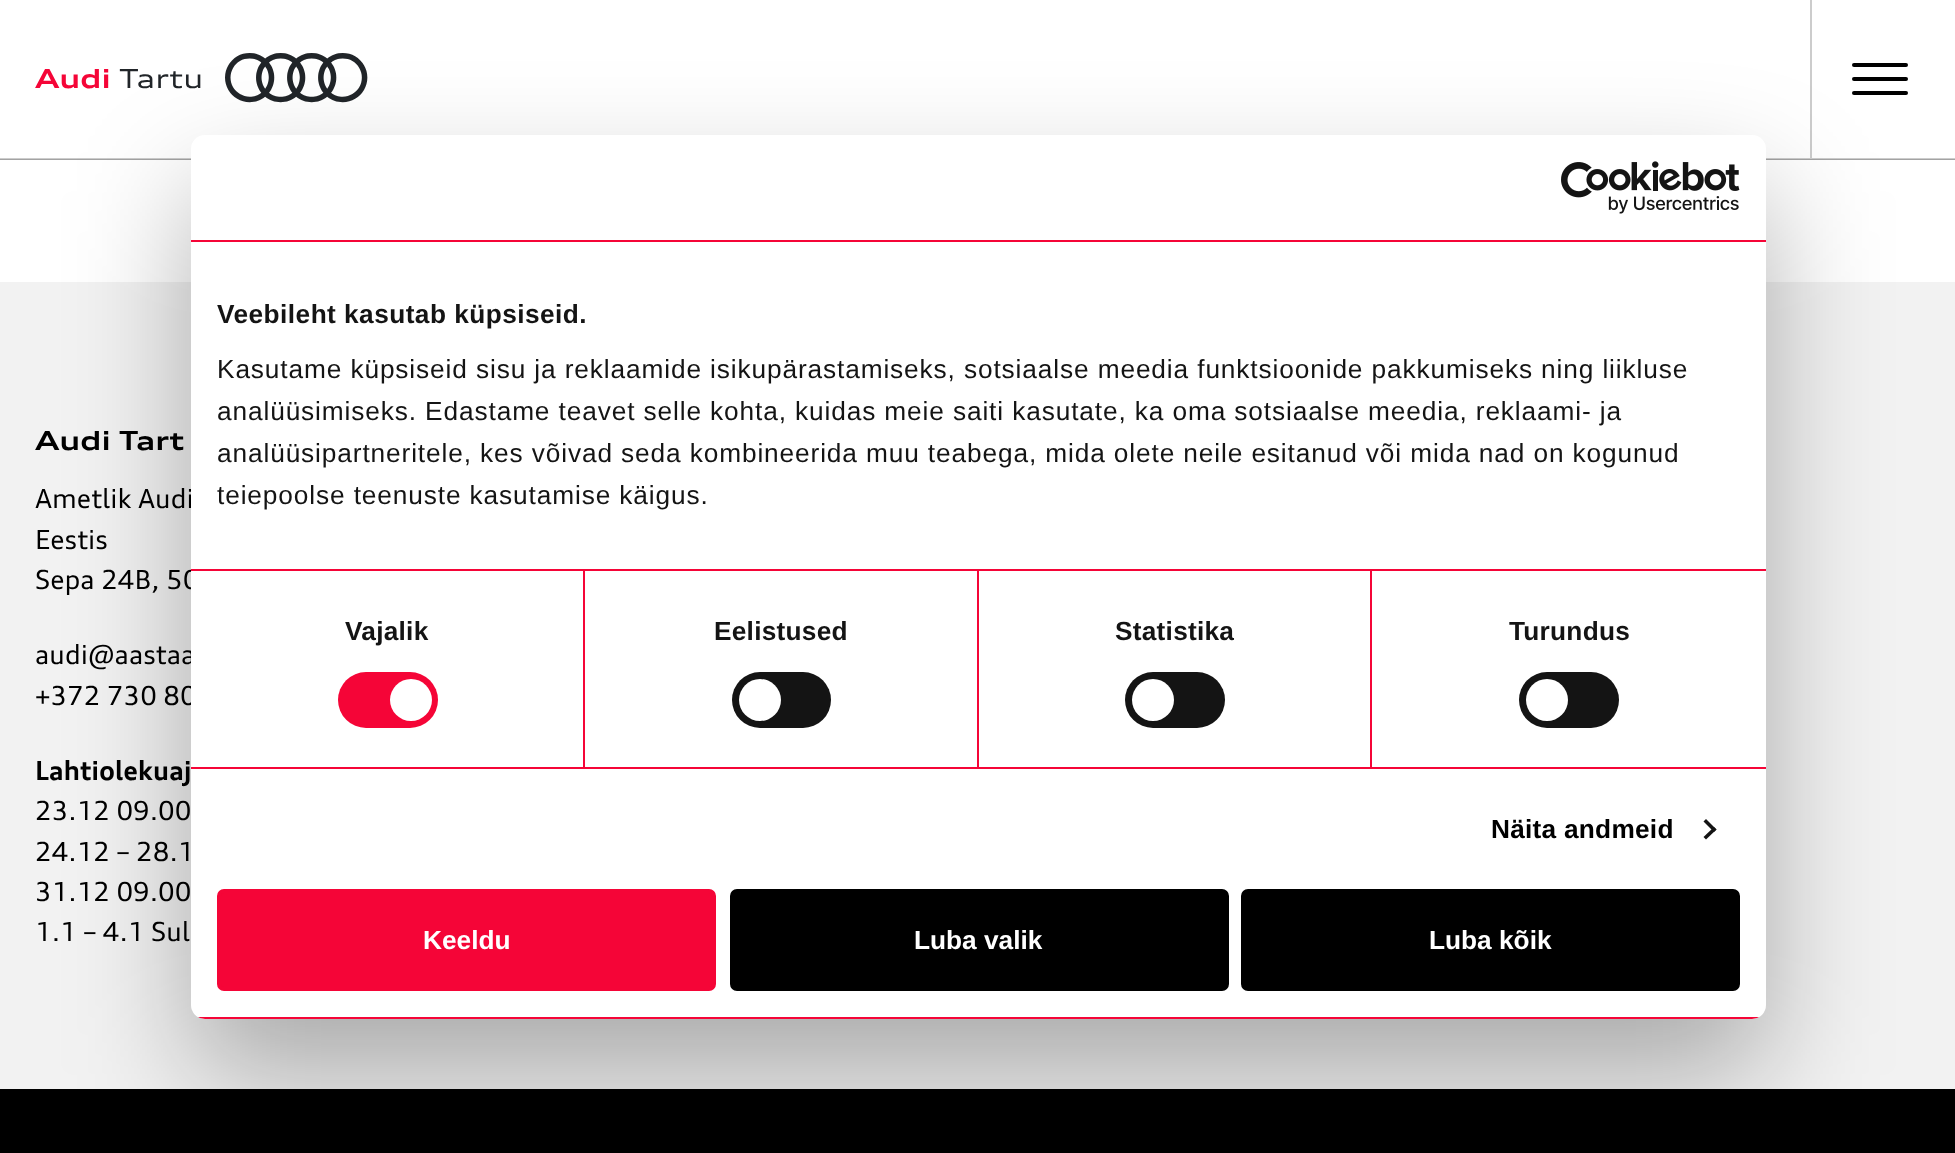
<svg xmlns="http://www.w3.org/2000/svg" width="1955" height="1153">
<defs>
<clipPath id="clip1"><rect x="191" y="135" width="1575" height="884" rx="14"/></clipPath>
</defs>
<rect width="100%" height="100%" fill="#fff"/>
<rect y="158" width="1955" height="1" fill="#ccc"/>
<text x="35" y="88" style="font-family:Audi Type;font-size:26.25px;font-weight:bold;fill:#f50537">Audi</text>
<text x="119" y="88" style="font-family:'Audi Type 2';font-size:26.25px;fill:#212529">Tartu</text>
<text x="225" y="96" style="font-family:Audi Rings;font-size:51px;fill:#212529">a</text>
<rect x="1810" width="2" height="158" fill="#ccc"/>
<rect x="1852" y="63" width="56" height="4" rx="2" fill="#000"/>
<rect x="1852" y="77" width="56" height="4" rx="2" fill="#000"/>
<rect x="1852" y="91" width="56" height="4" rx="2" fill="#000"/>
<rect y="159" width="1955" height="1" fill="#a3a3a3"/>
<rect y="282" width="1955" height="807" fill="#f2f2f2"/>
<text x="35" y="450" style="font-family:Audi Type;font-size:26.25px;font-weight:bold;fill:#000">Audi Tart</text>
<text x="35" y="508" style="font-family:Audi Type;font-size:26.25px;fill:#000">Ametlik Audi</text>
<text x="35" y="549" style="font-family:Audi Type;font-size:26.25px;fill:#000">Eestis</text>
<text x="35" y="589" style="font-family:Audi Type;font-size:26.25px;fill:#000">Sepa 24B, 50</text>
<text x="35" y="664" style="font-family:Audi Type;font-size:26.25px;fill:#000">audi@aastaa</text>
<text x="35" y="705" style="font-family:Audi Type;font-size:26.25px;fill:#000">+372 730 80</text>
<text x="35" y="780" style="font-family:'Audi Type 2';font-size:26.25px;font-weight:bold;fill:#000">Lahtiolekuaj</text>
<text x="35" y="820" style="font-family:Audi Type;font-size:26.25px;fill:#000">23.12 09.00</text>
<text x="35" y="861" style="font-family:Audi Type;font-size:26.25px;fill:#000">24.12 – 28.1</text>
<text x="35" y="901" style="font-family:Audi Type;font-size:26.25px;fill:#000">31.12 09.00</text>
<text x="35" y="941" style="font-family:Audi Type;font-size:26.25px;fill:#000">1.1 – 4.1 Sul</text>
<rect y="1089" width="1955" height="64" fill="#000"/>
<rect x="191" y="191" width="1575" height="884" rx="14" fill="#0000004d" filter="blur(59.5px)"/>
<rect x="191" y="135" width="1575" height="884" rx="14" fill="#fff"/>
<rect x="191" y="240" width="1575" height="2" fill="#f50537"/>
<image x="1561" y="161" width="179" height="53" href="media/1.png"/>
<rect x="191" y="569" width="1575" height="2" fill="#f50537"/>
<text x="217" y="323" style="font-family:Liberation Sans;font-size:26.25px;font-weight:bold;letter-spacing:0.45px;fill:#141414">Veebileht kasutab küpsiseid.</text>
<text x="217" y="378" style="font-family:Liberation Sans;font-size:26.25px;letter-spacing:0.88px;fill:#141414">Kasutame küpsiseid sisu ja reklaamide isikupärastamiseks, sotsiaalse meedia funktsioonide pakkumiseks ning liikluse</text>
<text x="217" y="420" style="font-family:Liberation Sans;font-size:26.25px;letter-spacing:0.88px;fill:#141414">analüüsimiseks. Edastame teavet selle kohta, kuidas meie saiti kasutate, ka oma sotsiaalse meedia, reklaami- ja</text>
<text x="217" y="462" style="font-family:Liberation Sans;font-size:26.25px;letter-spacing:0.88px;fill:#141414">analüüsipartneritele, kes võivad seda kombineerida muu teabega, mida olete neile esitanud või mida nad on kogunud</text>
<text x="217" y="504" style="font-family:Liberation Sans;font-size:26.25px;letter-spacing:0.88px;fill:#141414">teiepoolse teenuste kasutamise käigus.</text>
<rect x="191" y="767" width="1575" height="2" fill="#f50537"/>
<rect x="583" y="571" width="2" height="196" fill="#f50537"/>
<text x="345" y="640" style="font-family:Liberation Sans;font-size:26.25px;font-weight:bold;letter-spacing:0.25px;fill:#141414">Vajalik</text>
<rect x="338" y="672" width="100" height="56" rx="28" fill="#f50537"/>
<circle cx="411" cy="700" r="21" fill="#fff"/>
<rect x="977" y="571" width="2" height="196" fill="#f50537"/>
<text x="714" y="640" style="font-family:Liberation Sans;font-size:26.25px;font-weight:bold;letter-spacing:0.25px;fill:#141414">Eelistused</text>
<rect x="732" y="672" width="99" height="56" rx="28" fill="#141414"/>
<circle cx="760" cy="700" r="21" fill="#fff"/>
<rect x="1370" y="571" width="2" height="196" fill="#f50537"/>
<text x="1115" y="640" style="font-family:Liberation Sans;font-size:26.25px;font-weight:bold;letter-spacing:0.25px;fill:#141414">Statistika</text>
<rect x="1125" y="672" width="100" height="56" rx="28" fill="#141414"/>
<circle cx="1153" cy="700" r="21" fill="#fff"/>
<text x="1509" y="640" style="font-family:Liberation Sans;font-size:26.25px;font-weight:bold;letter-spacing:0.25px;fill:#141414">Turundus</text>
<rect x="1519" y="672" width="100" height="56" rx="28" fill="#141414"/>
<circle cx="1547" cy="700" r="21" fill="#fff"/>
<text x="1491" y="838" style="font-family:Liberation Sans;font-size:26.25px;font-weight:bold;letter-spacing:0.25px;fill:#000">Näita andmeid</text>
<path d="M1706 819l10.5 10.5l-2.5 2.5l-10.5-10.5z" fill="#141414"/>
<path d="M1714 827l2.5 2.5l-10.5 10l-2.5-2.5z" fill="#141414"/>
<g clip-path="url(#clip1)">
<rect x="191" y="1017" width="1575" height="2" fill="#f50537"/>
</g>
<rect x="219" y="891" width="495" height="98" rx="5" fill="#f50537" stroke="#f50537" stroke-width="4"/>
<text x="423" y="949" style="font-family:Liberation Sans;font-size:26.25px;font-weight:bold;fill:#fff">Keeldu</text>
<rect x="732" y="891" width="495" height="98" rx="5" fill="#000" stroke="#000" stroke-width="4"/>
<text x="914" y="949" style="font-family:Liberation Sans;font-size:26.25px;font-weight:bold;fill:#fff">Luba valik</text>
<rect x="1243" y="891" width="495" height="98" rx="5" fill="#000" stroke="#000" stroke-width="4"/>
<text x="1429" y="949" style="font-family:Liberation Sans;font-size:26.25px;font-weight:bold;fill:#fff">Luba kõik</text>
</svg>
